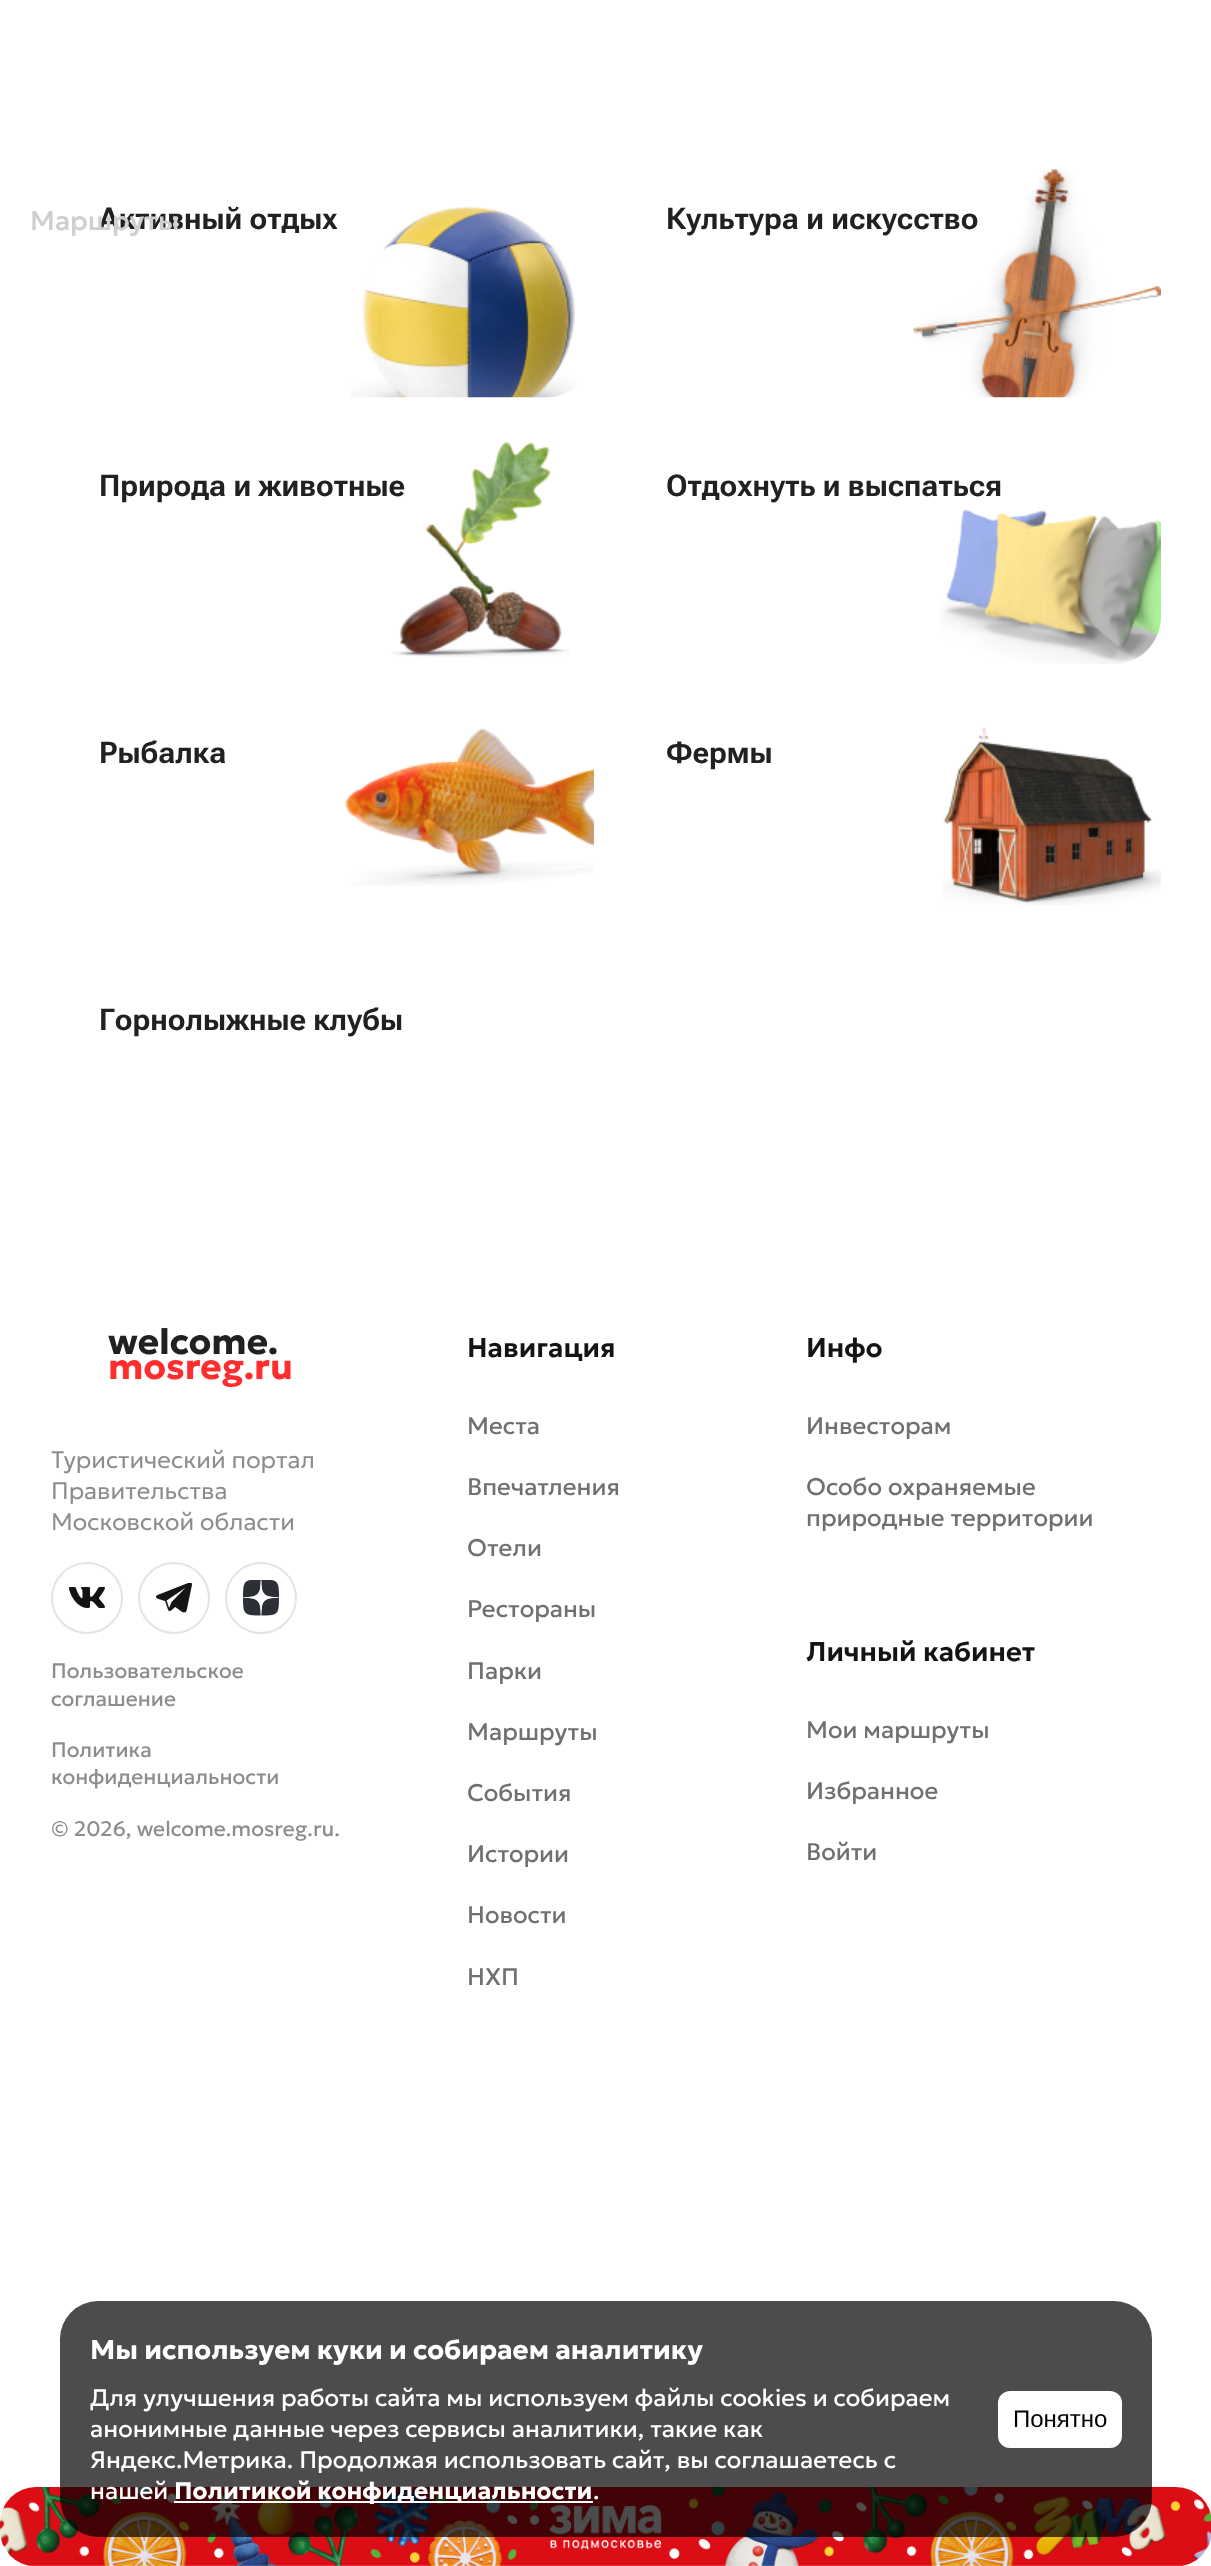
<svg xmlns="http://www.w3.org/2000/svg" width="1211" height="2566">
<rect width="100%" height="100%" fill="#fff"/>
<image x="350" y="206" width="227" height="192" href="media/1.png"/>
<text x="99" y="229" style="font-family:Roboto Flex;font-size:30px;font-weight:bold;fill:#212121">Активный отдых</text>
<image x="912" y="169" width="249" height="229" href="media/2.png"/>
<text x="666" y="229" style="font-family:Roboto Flex;font-size:30px;font-weight:bold;fill:#212121">Культура и искусство</text>
<image x="391" y="442" width="180" height="215" href="media/3.png"/>
<text x="99" y="496" style="font-family:Roboto Flex;font-size:30px;font-weight:bold;fill:#212121">Природа и животные</text>
<image x="940" y="509" width="221" height="155" href="media/4.png"/>
<text x="666" y="496" style="font-family:Roboto Flex;font-size:30px;font-weight:bold;fill:#212121">Отдохнуть и выспаться</text>
<image x="344" y="728" width="250" height="158" href="media/5.png"/>
<text x="99" y="763" style="font-family:Roboto Flex;font-size:30px;font-weight:bold;fill:#212121">Рыбалка</text>
<image x="943" y="727" width="218" height="178" href="media/6.png"/>
<text x="666" y="763" style="font-family:Roboto Flex;font-size:30px;font-weight:bold;fill:#212121">Фермы</text>
<text x="99" y="1030" style="font-family:Roboto Flex;font-size:30px;font-weight:bold;fill:#212121">Горнолыжные клубы</text>
<text x="30" y="230" style="font-family:Geologica;font-size:27px;font-weight:500;fill:#cfcfcf">Маршруты</text>
<text x="108" y="1354" style="font-family:Geologica;font-size:36px;font-weight:bold;fill:#212121">welcome.</text>
<text x="108" y="1379" style="font-family:Geologica;font-size:36px;font-weight:bold;fill:#ff2d2d">mosreg.ru</text>
<text x="51" y="1468" style="font-family:Geologica;font-size:24px;font-weight:300;fill:#8d8d8d">Туристический портал</text>
<text x="51" y="1499" style="font-family:Geologica;font-size:24px;font-weight:300;fill:#8d8d8d">Правительства</text>
<text x="51" y="1530" style="font-family:Geologica;font-size:24px;font-weight:300;fill:#8d8d8d">Московской области</text>
<circle cx="87" cy="1598" r="35" fill="none" stroke="#e2e4e7" stroke-width="2"/>
<image x="69" y="1587" width="36" height="21" href="media/7.png"/>
<circle cx="174" cy="1598" r="35" fill="none" stroke="#e2e4e7" stroke-width="2"/>
<image x="156" y="1583" width="36" height="30" href="media/8.png"/>
<circle cx="261" cy="1598" r="35" fill="none" stroke="#e2e4e7" stroke-width="2"/>
<image x="243" y="1580" width="36" height="36" href="media/9.png"/>
<text x="51" y="1678" style="font-family:Geologica;font-size:21px;fill:#8d8d8d">Пользовательское</text>
<text x="51" y="1706" style="font-family:Geologica;font-size:21px;fill:#8d8d8d">соглашение</text>
<text x="51" y="1757" style="font-family:Geologica;font-size:21px;fill:#8d8d8d">Политика</text>
<text x="51" y="1784" style="font-family:Geologica;font-size:21px;fill:#8d8d8d">конфиденциальности</text>
<text x="51" y="1836" style="font-family:Geologica;font-size:21px;fill:#8d8d8d">© 2026, welcome.mosreg.ru.</text>
<text x="467" y="1357" style="font-family:Geologica;font-size:27px;font-weight:600;fill:#141414">Навигация</text>
<text x="467" y="1434" style="font-family:Geologica;font-size:24px;fill:#707070">Места</text>
<text x="467" y="1495" style="font-family:Geologica;font-size:24px;fill:#707070">Впечатления</text>
<text x="467" y="1556" style="font-family:Geologica;font-size:24px;fill:#707070">Отели</text>
<text x="467" y="1617" style="font-family:Geologica;font-size:24px;fill:#707070">Рестораны</text>
<text x="467" y="1679" style="font-family:Geologica;font-size:24px;fill:#707070">Парки</text>
<text x="467" y="1740" style="font-family:Geologica;font-size:24px;fill:#707070">Маршруты</text>
<text x="467" y="1801" style="font-family:Geologica;font-size:24px;fill:#707070">События</text>
<text x="467" y="1862" style="font-family:Geologica;font-size:24px;fill:#707070">Истории</text>
<text x="467" y="1923" style="font-family:Geologica;font-size:24px;fill:#707070">Новости</text>
<text x="467" y="1985" style="font-family:Geologica;font-size:24px;fill:#707070">НХП</text>
<text x="806" y="1357" style="font-family:Geologica;font-size:27px;font-weight:600;fill:#141414">Инфо</text>
<text x="806" y="1434" style="font-family:Geologica;font-size:24px;fill:#707070">Инвесторам</text>
<text x="806" y="1495" style="font-family:Geologica;font-size:24px;fill:#707070">Особо охраняемые</text>
<text x="806" y="1526" style="font-family:Geologica;font-size:24px;fill:#707070">природные территории</text>
<text x="806" y="1661" style="font-family:Geologica;font-size:27px;font-weight:600;fill:#141414">Личный кабинет</text>
<text x="806" y="1738" style="font-family:Geologica;font-size:24px;fill:#707070">Мои маршруты</text>
<text x="806" y="1799" style="font-family:Geologica;font-size:24px;fill:#707070">Избранное</text>
<text x="806" y="1860" style="font-family:Geologica;font-size:24px;fill:#707070">Войти</text>
<image x="0" y="2487" width="1211" height="79" href="media/10.png"/>
<rect x="60" y="2301" width="1092" height="236" rx="38" fill="#000000b3"/>
<text x="90" y="2359" style="font-family:Geologica;font-size:27px;font-weight:bold;fill:#fff">Мы используем куки и собираем аналитику</text>
<text x="90" y="2406" style="font-family:Geologica;font-size:24px;fill:#fff">Для улучшения работы сайта мы используем файлы cookies и собираем</text>
<text x="90" y="2437" style="font-family:Geologica;font-size:24px;fill:#fff">анонимные данные через сервисы аналитики, такие как</text>
<text x="90" y="2468" style="font-family:Geologica;font-size:24px;fill:#fff">Яндекс.Метрика. Продолжая использовать сайт, вы соглашаетесь с</text>
<text x="90" y="2499" style="font-family:Geologica;font-size:24px;fill:#fff">нашей</text>
<rect x="174" y="2501" width="419" height="2" fill="#fff"/>
<text x="174" y="2499" style="font-family:Geologica;font-size:24px;font-weight:bold;fill:#fff">Политикой конфиденциальности</text>
<text x="593" y="2499" style="font-family:Geologica;font-size:24px;fill:#fff">.</text>
<rect x="998" y="2391" width="124" height="57" rx="12" fill="#fff"/>
<text x="1013" y="2427" style="font-family:Liberation Sans;font-size:24px;fill:#000">Понятно</text>
</svg>
